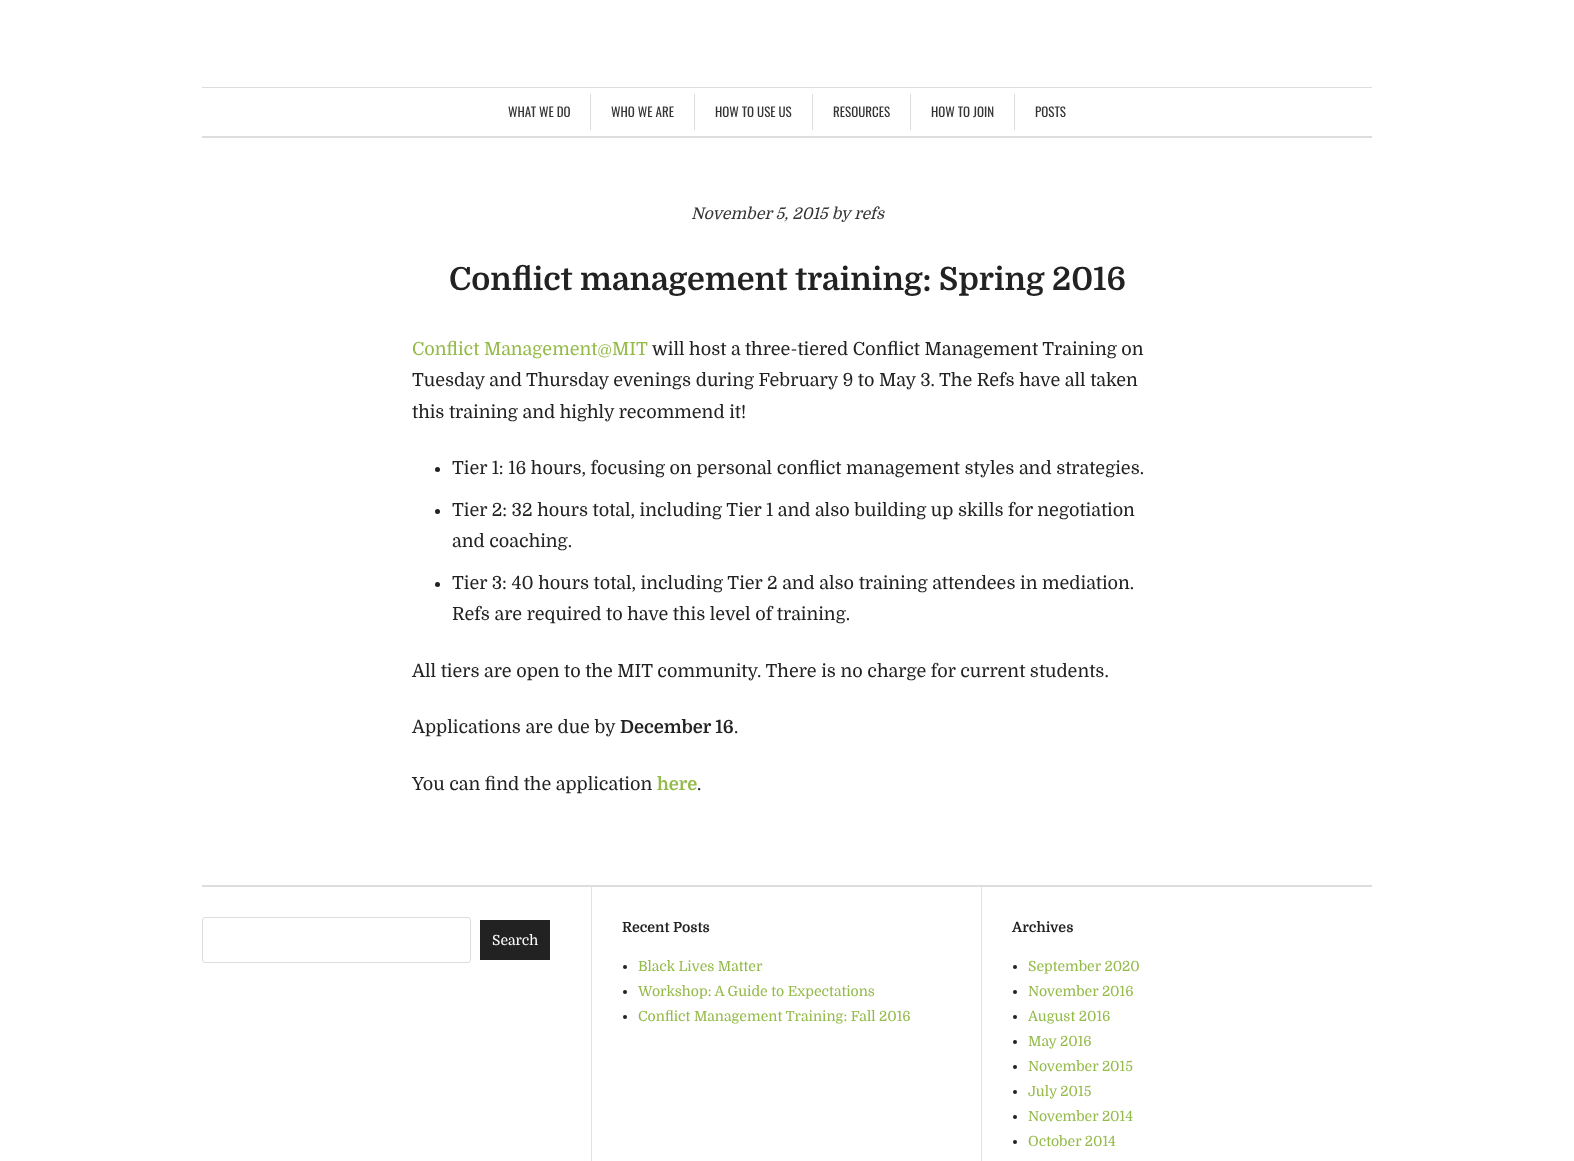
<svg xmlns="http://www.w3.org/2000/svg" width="1574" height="1161">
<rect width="100%" height="100%" fill="#fff"/>
<rect x="202" y="87" width="1170" height="1" fill="#ddd"/>
<rect x="202" y="136" width="1170" height="2" fill="#ddd"/>
<rect x="590" y="94" width="1" height="36" fill="#ddd"/>
<text x="508" y="117" style="font-family:Oswald;font-size:13px;fill:#353535">WHAT WE DO</text>
<rect x="694" y="94" width="1" height="36" fill="#ddd"/>
<text x="611" y="117" style="font-family:Oswald;font-size:13px;fill:#353535">WHO WE ARE</text>
<rect x="812" y="94" width="1" height="36" fill="#ddd"/>
<text x="715" y="117" style="font-family:Oswald;font-size:13px;fill:#353535">HOW TO USE US</text>
<rect x="910" y="94" width="1" height="36" fill="#ddd"/>
<text x="833" y="117" style="font-family:Oswald;font-size:13px;fill:#353535">RESOURCES</text>
<rect x="1014" y="94" width="1" height="36" fill="#ddd"/>
<text x="931" y="117" style="font-family:Oswald;font-size:13px;fill:#353535">HOW TO JOIN</text>
<text x="1035" y="117" style="font-family:Oswald;font-size:13px;fill:#353535">POSTS</text>
<text x="691" y="219" style="font-family:Domine;font-size:16px;font-style:italic;fill:#353535">November 5, 2015 by refs</text>
<text x="449" y="290" style="font-family:Domine;font-size:32px;font-weight:bold;fill:#222">Conflict management training: Spring 2016</text>
<text x="412" y="355" style="font-family:Domine;font-size:18px;fill:#94ba49">Conflict Management@MIT</text>
<text x="652" y="355" style="font-family:Domine;font-size:18px;fill:#222">will host a three-tiered Conflict Management Training on</text>
<text x="412" y="386" style="font-family:Domine;font-size:18px;fill:#222">Tuesday and Thursday evenings during February 9 to May 3. The Refs have all taken</text>
<text x="412" y="418" style="font-family:Domine;font-size:18px;fill:#222">this training and highly recommend it!</text>
<circle cx="437.5" cy="469.5" r="2.5" fill="#222"/>
<text x="452" y="474" style="font-family:Domine;font-size:18px;fill:#222">Tier 1: 16 hours, focusing on personal conflict management styles and strategies.</text>
<circle cx="437.5" cy="511.5" r="2.5" fill="#222"/>
<text x="452" y="516" style="font-family:Domine;font-size:18px;fill:#222">Tier 2: 32 hours total, including Tier 1 and also building up skills for negotiation</text>
<text x="452" y="547" style="font-family:Domine;font-size:18px;fill:#222">and coaching.</text>
<circle cx="437.5" cy="584.5" r="2.5" fill="#222"/>
<text x="452" y="589" style="font-family:Domine;font-size:18px;fill:#222">Tier 3: 40 hours total, including Tier 2 and also training attendees in mediation.</text>
<text x="452" y="620" style="font-family:Domine;font-size:18px;fill:#222">Refs are required to have this level of training.</text>
<text x="412" y="677" style="font-family:Domine;font-size:18px;fill:#222">All tiers are open to the MIT community. There is no charge for current students.</text>
<text x="412" y="733" style="font-family:Domine;font-size:18px;fill:#222">Applications are due by</text>
<text x="620" y="733" style="font-family:Domine;font-size:18px;font-weight:bold;fill:#222">December 16</text>
<text x="734" y="733" style="font-family:Domine;font-size:18px;fill:#222">.</text>
<text x="412" y="790" style="font-family:Domine;font-size:18px;fill:#222">You can find the application</text>
<text x="657" y="790" style="font-family:Domine;font-size:18px;font-weight:bold;fill:#94ba49">here</text>
<text x="697" y="790" style="font-family:Domine;font-size:18px;fill:#222">.</text>
<rect x="202" y="885" width="1170" height="2" fill="#ddd"/>
<rect x="591" y="887" width="1" height="274" fill="#e1e2e3"/>
<rect x="202.5" y="917.5" width="268" height="45" rx="2.5" fill="none" stroke="#ddd"/>
<rect x="480" y="920" width="70" height="40" fill="#222"/>
<text x="492" y="945" style="font-family:Domine;font-size:14px;fill:#fff">Search</text>
<rect x="981" y="887" width="1" height="274" fill="#e1e2e3"/>
<text x="622" y="932" style="font-family:Domine;font-size:14px;font-weight:bold;fill:#222">Recent Posts</text>
<circle cx="625" cy="967" r="2" fill="#222"/>
<text x="638" y="971" style="font-family:Domine;font-size:14px;fill:#94ba49">Black Lives Matter</text>
<circle cx="625" cy="992" r="2" fill="#222"/>
<text x="638" y="996" style="font-family:Domine;font-size:14px;fill:#94ba49">Workshop: A Guide to Expectations</text>
<circle cx="625" cy="1017" r="2" fill="#222"/>
<text x="638" y="1021" style="font-family:Domine;font-size:14px;fill:#94ba49">Conflict Management Training: Fall 2016</text>
<text x="1012" y="932" style="font-family:Domine;font-size:14px;font-weight:bold;fill:#222">Archives</text>
<circle cx="1015" cy="967" r="2" fill="#222"/>
<text x="1028" y="971" style="font-family:Domine;font-size:14px;fill:#94ba49">September 2020</text>
<circle cx="1015" cy="992" r="2" fill="#222"/>
<text x="1028" y="996" style="font-family:Domine;font-size:14px;fill:#94ba49">November 2016</text>
<circle cx="1015" cy="1017" r="2" fill="#222"/>
<text x="1028" y="1021" style="font-family:Domine;font-size:14px;fill:#94ba49">August 2016</text>
<circle cx="1015" cy="1042" r="2" fill="#222"/>
<text x="1028" y="1046" style="font-family:Domine;font-size:14px;fill:#94ba49">May 2016</text>
<circle cx="1015" cy="1067" r="2" fill="#222"/>
<text x="1028" y="1071" style="font-family:Domine;font-size:14px;fill:#94ba49">November 2015</text>
<circle cx="1015" cy="1092" r="2" fill="#222"/>
<text x="1028" y="1096" style="font-family:Domine;font-size:14px;fill:#94ba49">July 2015</text>
<circle cx="1015" cy="1117" r="2" fill="#222"/>
<text x="1028" y="1121" style="font-family:Domine;font-size:14px;fill:#94ba49">November 2014</text>
<circle cx="1015" cy="1142" r="2" fill="#222"/>
<text x="1028" y="1146" style="font-family:Domine;font-size:14px;fill:#94ba49">October 2014</text>
</svg>
